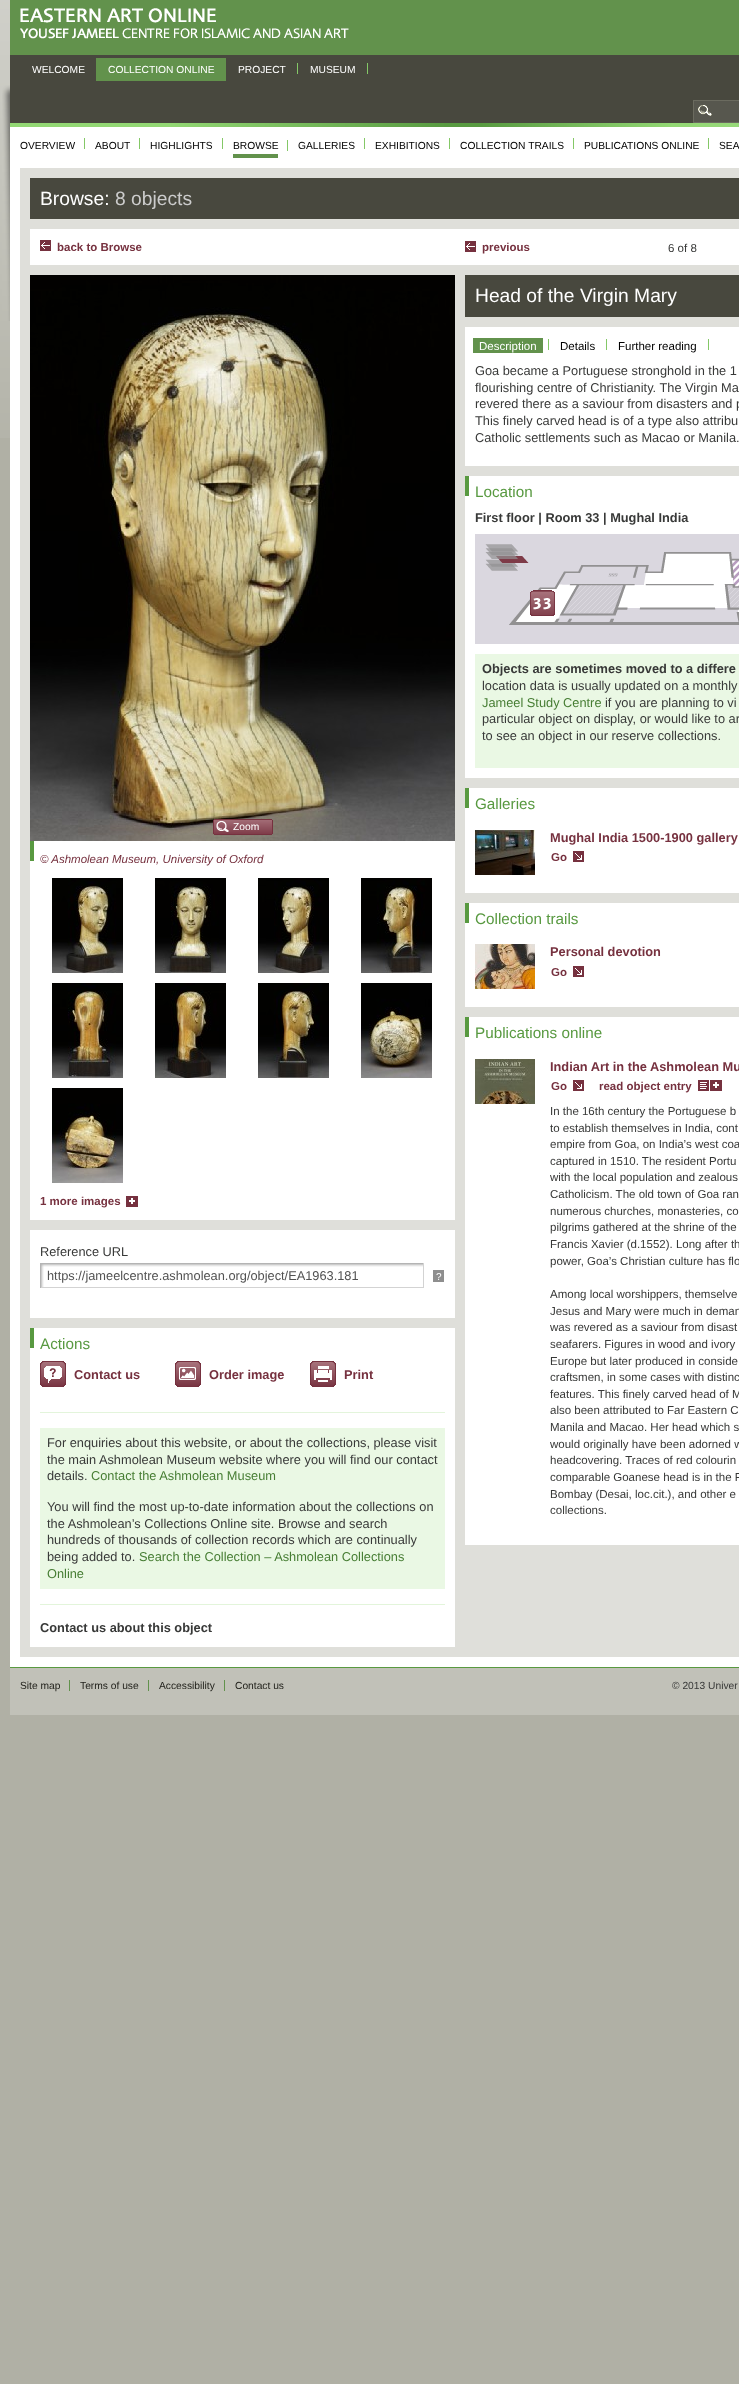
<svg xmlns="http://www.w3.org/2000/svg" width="739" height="2384">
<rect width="100%" height="100%" fill="#b0b0a5"/>
<image x="0" y="0" width="10" height="438" href="media/1.png"/>
<image x="2" y="85" width="8" height="236" href="media/2.png"/>
<rect x="10" width="729" height="55" fill="#62924c"/>
<image x="20" y="8" width="329" height="31" href="media/3.png"/>
<rect x="10" y="55" width="729" height="68" fill="#48483e"/>
<text x="32" y="73" style="font-family:Liberation Sans;font-size:10.25px;fill:#fff">WELCOME</text>
<rect x="96" y="58" width="130" height="23" fill="#62924c"/>
<text x="108" y="73" style="font-family:Liberation Sans;font-size:10.25px;fill:#fff">COLLECTION ONLINE</text>
<rect x="297" y="63" width="1" height="11" fill="#84c867"/>
<text x="238" y="73" style="font-family:Liberation Sans;font-size:10.25px;fill:#fff">PROJECT</text>
<rect x="367" y="63" width="1" height="11" fill="#84c867"/>
<text x="310" y="73" style="font-family:Liberation Sans;font-size:10.25px;fill:#fff">MUSEUM</text>
<rect x="694" y="101" width="45" height="21" fill="#57574e"/>
<image x="698" y="105" width="14" height="11" href="media/4.png"/>
<rect x="693.5" y="100.5" width="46" height="22" fill="none" stroke="#6b6b5f"/>
<rect x="10" y="127" width="729" height="1540" fill="#fff"/>
<image x="10" y="123" width="729" height="4" href="media/5.png"/>
<rect x="84" y="138" width="1" height="11" fill="#84c867"/>
<text x="20" y="149" style="font-family:Liberation Sans;font-size:10.25px;fill:#000">OVERVIEW</text>
<rect x="139" y="138" width="1" height="11" fill="#84c867"/>
<text x="95" y="149" style="font-family:Liberation Sans;font-size:10.25px;fill:#000">ABOUT</text>
<rect x="222" y="138" width="1" height="11" fill="#84c867"/>
<text x="150" y="149" style="font-family:Liberation Sans;font-size:10.25px;fill:#000">HIGHLIGHTS</text>
<rect x="287" y="140" width="1" height="11" fill="#84c867"/>
<rect x="233" y="154" width="45" height="4" fill="#62924c"/>
<text x="233" y="149" style="font-family:Liberation Sans;font-size:10.25px;fill:#000">BROWSE</text>
<rect x="364" y="138" width="1" height="11" fill="#84c867"/>
<text x="298" y="149" style="font-family:Liberation Sans;font-size:10.25px;fill:#000">GALLERIES</text>
<rect x="449" y="138" width="1" height="11" fill="#84c867"/>
<text x="375" y="149" style="font-family:Liberation Sans;font-size:10.25px;fill:#000">EXHIBITIONS</text>
<rect x="573" y="138" width="1" height="11" fill="#84c867"/>
<text x="460" y="149" style="font-family:Liberation Sans;font-size:10.25px;fill:#000">COLLECTION TRAILS</text>
<rect x="708" y="138" width="1" height="11" fill="#84c867"/>
<text x="584" y="149" style="font-family:Liberation Sans;font-size:10.25px;fill:#000">PUBLICATIONS ONLINE</text>
<text x="719" y="149" style="font-family:Liberation Sans;font-size:10.25px;fill:#000">SEA</text>
<rect x="20" y="168" width="719" height="1489" fill="#dfdfda"/>
<rect x="30" y="178" width="709" height="41" fill="#48483e"/>
<text x="40" y="205" style="font-family:Liberation Sans;font-size:19.25px;fill:#fff">Browse:</text>
<text x="115" y="205" style="font-family:Liberation Sans;font-size:19.25px;fill:#ccc">8 objects</text>
<rect x="30" y="229" width="709" height="36" fill="#fff"/>
<image x="40" y="240" width="11" height="11" href="media/6.png"/>
<text x="57" y="251" style="font-family:Liberation Sans;font-size:11.5px;font-weight:bold;fill:#76313f">back to Browse</text>
<image x="465" y="241" width="11" height="11" href="media/6.png"/>
<text x="482" y="251" style="font-family:Liberation Sans;font-size:11.5px;font-weight:bold;fill:#76313f">previous</text>
<text x="668" y="252" style="font-family:Liberation Sans;font-size:11.5px;fill:#383938">6 of 8</text>
<rect x="30" y="841" width="425" height="806" fill="#fff"/>
<image x="30" y="275" width="425" height="566" href="media/7.png"/>
<image x="213" y="819" width="60" height="16" href="media/8.png"/>
<image x="216" y="821" width="13" height="11" href="media/9.png"/>
<text x="233" y="830" style="font-family:Liberation Sans;font-size:10.25px;fill:#fff">Zoom</text>
<rect x="30" y="841" width="4" height="20" fill="#589940"/>
<rect x="30" y="1220" width="425" height="10" fill="#dfdfda"/>
<text x="40" y="863" style="font-family:Liberation Sans;font-size:11.5px;font-style:italic;fill:#76313f">© Ashmolean Museum, University of Oxford</text>
<image x="52" y="878" width="71" height="95" href="media/10.png"/>
<image x="155" y="878" width="71" height="95" href="media/11.png"/>
<image x="258" y="878" width="71" height="95" href="media/12.png"/>
<image x="361" y="878" width="71" height="95" href="media/13.png"/>
<image x="52" y="983" width="71" height="95" href="media/14.png"/>
<image x="155" y="983" width="71" height="95" href="media/15.png"/>
<image x="258" y="983" width="71" height="95" href="media/16.png"/>
<image x="361" y="983" width="71" height="95" href="media/17.png"/>
<image x="52" y="1088" width="71" height="95" href="media/18.png"/>
<text x="40" y="1205" style="font-family:Liberation Sans;font-size:11.5px;font-weight:bold;fill:#76313f">1 more images</text>
<image x="126" y="1196" width="12" height="11" href="media/19.png"/>
<rect x="30" y="1318" width="425" height="10" fill="#dfdfda"/>
<text x="40" y="1256" style="font-family:Liberation Sans;font-size:12.8px;fill:#383938">Reference URL</text>
<image x="41" y="1264" width="382" height="23" href="media/20.png"/>
<rect x="40" y="1263" width="384" height="1" fill="#b4b4b4"/>
<rect x="423" y="1263" width="1" height="25" fill="#d3d3d3"/>
<rect x="40" y="1287" width="384" height="1" fill="#d3d3d3"/>
<rect x="40" y="1263" width="1" height="25" fill="#b4b4b4"/>
<text x="47" y="1280" style="font-family:Liberation Sans;font-size:12.8px;fill:#525252">https://jameelcentre.ashmolean.org/object/EA1963.181</text>
<rect x="433" y="1270" width="11" height="12" fill="#8e8e8e"/>
<text x="436" y="1280" style="font-family:Liberation Sans;font-size:10px;fill:#fff">?</text>
<rect x="30" y="1328" width="4" height="20" fill="#589940"/>
<text x="40" y="1349" style="font-family:Liberation Sans;font-size:15.25px;fill:#589940">Actions</text>
<image x="40" y="1361" width="26" height="26" href="media/21.png"/>
<text x="74" y="1379" style="font-family:Liberation Sans;font-size:12.8px;font-weight:bold;fill:#76313f">Contact us</text>
<image x="175" y="1361" width="26" height="26" href="media/22.png"/>
<text x="209" y="1379" style="font-family:Liberation Sans;font-size:12.8px;font-weight:bold;fill:#76313f">Order image</text>
<image x="310" y="1361" width="26" height="26" href="media/23.png"/>
<text x="344" y="1379" style="font-family:Liberation Sans;font-size:12.8px;font-weight:bold;fill:#76313f">Print</text>
<rect x="40" y="1412" width="405" height="1" fill="#e3f5db"/>
<rect x="40" y="1428" width="405" height="161" fill="#eaf8e4"/>
<text x="47" y="1447" style="font-family:Liberation Sans;font-size:12.8px;fill:#383938">For enquiries about this website, or about the collections, please visit</text>
<text x="47" y="1464" style="font-family:Liberation Sans;font-size:12.8px;fill:#383938">the main Ashmolean Museum website where you will find our contact</text>
<text x="47" y="1480" style="font-family:Liberation Sans;font-size:12.8px;fill:#383938">details.</text>
<text x="91" y="1480" style="font-family:Liberation Sans;font-size:12.8px;fill:#467d33">Contact the Ashmolean Museum</text>
<text x="47" y="1511" style="font-family:Liberation Sans;font-size:12.8px;fill:#383938">You will find the most up-to-date information about the collections on</text>
<text x="47" y="1528" style="font-family:Liberation Sans;font-size:12.8px;fill:#383938">the Ashmolean’s Collections Online site. Browse and search</text>
<text x="47" y="1544" style="font-family:Liberation Sans;font-size:12.8px;fill:#383938">hundreds of thousands of collection records which are continually</text>
<text x="47" y="1561" style="font-family:Liberation Sans;font-size:12.8px;fill:#383938">being added to.</text>
<text x="139" y="1561" style="font-family:Liberation Sans;font-size:12.8px;fill:#467d33">Search the Collection – Ashmolean Collections</text>
<text x="47" y="1578" style="font-family:Liberation Sans;font-size:12.8px;fill:#467d33">Online</text>
<rect x="40" y="1604" width="405" height="1" fill="#e3f5db"/>
<text x="40" y="1632" style="font-family:Liberation Sans;font-size:12.8px;font-weight:bold;fill:#383938">Contact us about this object</text>
<rect x="465" y="327" width="274" height="1218" fill="#fff"/>
<rect x="465" y="275" width="274" height="42" fill="#48483e"/>
<text x="475" y="302" style="font-family:Liberation Sans;font-size:19.25px;fill:#fff">Head of the Virgin Mary</text>
<rect x="465" y="466" width="274" height="10" fill="#dfdfda"/>
<rect x="548" y="339" width="1" height="11" fill="#84c867"/>
<rect x="473" y="338" width="70" height="15" fill="#62924c"/>
<text x="479" y="350" style="font-family:Liberation Sans;font-size:11.5px;fill:#fff">Description</text>
<rect x="606" y="339" width="1" height="11" fill="#84c867"/>
<text x="560" y="350" style="font-family:Liberation Sans;font-size:11.5px;fill:#000">Details</text>
<rect x="708" y="339" width="1" height="11" fill="#84c867"/>
<text x="618" y="350" style="font-family:Liberation Sans;font-size:11.5px;fill:#000">Further reading</text>
<text x="475" y="375" style="font-family:Liberation Sans;font-size:12.8px;fill:#383938">Goa became a Portuguese stronghold in the 1</text>
<text x="475" y="392" style="font-family:Liberation Sans;font-size:12.8px;fill:#383938">flourishing centre of Christianity. The Virgin Ma</text>
<text x="475" y="408" style="font-family:Liberation Sans;font-size:12.8px;fill:#383938">revered there as a saviour from disasters and p</text>
<text x="475" y="425" style="font-family:Liberation Sans;font-size:12.8px;fill:#383938">This finely carved head is of a type also attribu</text>
<text x="475" y="442" style="font-family:Liberation Sans;font-size:12.8px;fill:#383938">Catholic settlements such as Macao or Manila.</text>
<rect x="465" y="476" width="4" height="20" fill="#589940"/>
<rect x="465" y="778" width="274" height="10" fill="#dfdfda"/>
<text x="475" y="497" style="font-family:Liberation Sans;font-size:15.25px;fill:#589940">Location</text>
<text x="475" y="522" style="font-family:Liberation Sans;font-size:12.8px;font-weight:bold;fill:#383938">First floor | Room 33 | Mughal India</text>
<image x="475" y="534" width="264" height="110" href="media/24.png"/>
<rect x="475" y="654" width="264" height="114" fill="#eaf8e4"/>
<text x="482" y="673" style="font-family:Liberation Sans;font-size:12.8px;font-weight:bold;fill:#383938">Objects are sometimes moved to a differe</text>
<text x="482" y="690" style="font-family:Liberation Sans;font-size:12.8px;fill:#383938">location data is usually updated on a monthly</text>
<text x="482" y="707" style="font-family:Liberation Sans;font-size:12.8px;fill:#467d33">Jameel Study Centre</text>
<text x="605" y="707" style="font-family:Liberation Sans;font-size:12.8px;fill:#383938">if you are planning to vi</text>
<text x="482" y="723" style="font-family:Liberation Sans;font-size:12.8px;fill:#383938">particular object on display, or would like to ar</text>
<text x="482" y="740" style="font-family:Liberation Sans;font-size:12.8px;fill:#383938">to see an object in our reserve collections.</text>
<rect x="465" y="788" width="4" height="20" fill="#589940"/>
<rect x="465" y="893" width="274" height="10" fill="#dfdfda"/>
<text x="475" y="809" style="font-family:Liberation Sans;font-size:15.25px;fill:#589940">Galleries</text>
<image x="475" y="830" width="60" height="45" href="media/25.png"/>
<text x="550" y="842" style="font-family:Liberation Sans;font-size:12.8px;font-weight:bold;fill:#76313f">Mughal India 1500-1900 gallery</text>
<text x="551" y="861" style="font-family:Liberation Sans;font-size:11.5px;font-weight:bold;fill:#76313f">Go</text>
<image x="573" y="851" width="11" height="11" href="media/26.png"/>
<rect x="465" y="903" width="4" height="20" fill="#589940"/>
<rect x="465" y="1007" width="274" height="10" fill="#dfdfda"/>
<text x="475" y="924" style="font-family:Liberation Sans;font-size:15.25px;fill:#589940">Collection trails</text>
<image x="475" y="944" width="60" height="45" href="media/27.png"/>
<text x="550" y="956" style="font-family:Liberation Sans;font-size:12.8px;font-weight:bold;fill:#76313f">Personal devotion</text>
<text x="551" y="976" style="font-family:Liberation Sans;font-size:11.5px;font-weight:bold;fill:#76313f">Go</text>
<image x="573" y="966" width="11" height="11" href="media/26.png"/>
<rect x="465" y="1017" width="4" height="20" fill="#589940"/>
<text x="475" y="1038" style="font-family:Liberation Sans;font-size:15.25px;fill:#589940">Publications online</text>
<image x="475" y="1059" width="60" height="45" href="media/28.png"/>
<text x="550" y="1071" style="font-family:Liberation Sans;font-size:12.8px;font-weight:bold;fill:#76313f">Indian Art in the Ashmolean Mu</text>
<text x="551" y="1090" style="font-family:Liberation Sans;font-size:11.5px;font-weight:bold;fill:#76313f">Go</text>
<image x="573" y="1080" width="11" height="11" href="media/26.png"/>
<text x="599" y="1090" style="font-family:Liberation Sans;font-size:11.5px;font-weight:bold;fill:#76313f">read object entry</text>
<image x="698" y="1080" width="24" height="11" href="media/29.png"/>
<text x="550" y="1115" style="font-family:Liberation Sans;font-size:11.5px;fill:#383938">In the 16th century the Portuguese b</text>
<text x="550" y="1132" style="font-family:Liberation Sans;font-size:11.5px;fill:#383938">to establish themselves in India, cont</text>
<text x="550" y="1148" style="font-family:Liberation Sans;font-size:11.5px;fill:#383938">empire from Goa, on India’s west coa</text>
<text x="550" y="1165" style="font-family:Liberation Sans;font-size:11.5px;fill:#383938">captured in 1510. The resident Portu</text>
<text x="550" y="1181" style="font-family:Liberation Sans;font-size:11.5px;fill:#383938">with the local population and zealous</text>
<text x="550" y="1198" style="font-family:Liberation Sans;font-size:11.5px;fill:#383938">Catholicism. The old town of Goa ran</text>
<text x="550" y="1215" style="font-family:Liberation Sans;font-size:11.5px;fill:#383938">numerous churches, monasteries, co</text>
<text x="550" y="1231" style="font-family:Liberation Sans;font-size:11.5px;fill:#383938">pilgrims gathered at the shrine of the</text>
<text x="550" y="1248" style="font-family:Liberation Sans;font-size:11.5px;fill:#383938">Francis Xavier (d.1552). Long after th</text>
<text x="550" y="1265" style="font-family:Liberation Sans;font-size:11.5px;fill:#383938">power, Goa’s Christian culture has flo</text>
<text x="550" y="1298" style="font-family:Liberation Sans;font-size:11.5px;fill:#383938">Among local worshippers, themselve</text>
<text x="550" y="1315" style="font-family:Liberation Sans;font-size:11.5px;fill:#383938">Jesus and Mary were much in deman</text>
<text x="550" y="1331" style="font-family:Liberation Sans;font-size:11.5px;fill:#383938">was revered as a saviour from disast</text>
<text x="550" y="1348" style="font-family:Liberation Sans;font-size:11.5px;fill:#383938">seafarers. Figures in wood and ivory</text>
<text x="550" y="1365" style="font-family:Liberation Sans;font-size:11.5px;fill:#383938">Europe but later produced in conside</text>
<text x="550" y="1381" style="font-family:Liberation Sans;font-size:11.5px;fill:#383938">craftsmen, in some cases with distinc</text>
<text x="550" y="1398" style="font-family:Liberation Sans;font-size:11.5px;fill:#383938">features. This finely carved head of M</text>
<text x="550" y="1414" style="font-family:Liberation Sans;font-size:11.5px;fill:#383938">also been attributed to Far Eastern C</text>
<text x="550" y="1431" style="font-family:Liberation Sans;font-size:11.5px;fill:#383938">Manila and Macao. Her head which s</text>
<text x="550" y="1448" style="font-family:Liberation Sans;font-size:11.5px;fill:#383938">would originally have been adorned w</text>
<text x="550" y="1464" style="font-family:Liberation Sans;font-size:11.5px;fill:#383938">headcovering. Traces of red colourin</text>
<text x="550" y="1481" style="font-family:Liberation Sans;font-size:11.5px;fill:#383938">comparable Goanese head is in the P</text>
<text x="550" y="1498" style="font-family:Liberation Sans;font-size:11.5px;fill:#383938">Bombay (Desai, loc.cit.), and other e</text>
<text x="550" y="1514" style="font-family:Liberation Sans;font-size:11.5px;fill:#383938">collections.</text>
<rect x="10" y="1668" width="729" height="47" fill="#c1c1b8"/>
<rect x="10" y="1667" width="729" height="1" fill="#589940"/>
<rect x="69" y="1680" width="1" height="11" fill="#62924c"/>
<text x="20" y="1689" style="font-family:Liberation Sans;font-size:10.25px;fill:#1f1f19">Site map</text>
<rect x="148" y="1680" width="1" height="11" fill="#62924c"/>
<text x="80" y="1689" style="font-family:Liberation Sans;font-size:10.25px;fill:#1f1f19">Terms of use</text>
<rect x="224" y="1680" width="1" height="11" fill="#62924c"/>
<text x="159" y="1689" style="font-family:Liberation Sans;font-size:10.25px;fill:#1f1f19">Accessibility</text>
<text x="235" y="1689" style="font-family:Liberation Sans;font-size:10.25px;fill:#1f1f19">Contact us</text>
<text x="672" y="1689" style="font-family:Liberation Sans;font-size:10.25px;fill:#383938">© 2013 Univer</text>
</svg>
